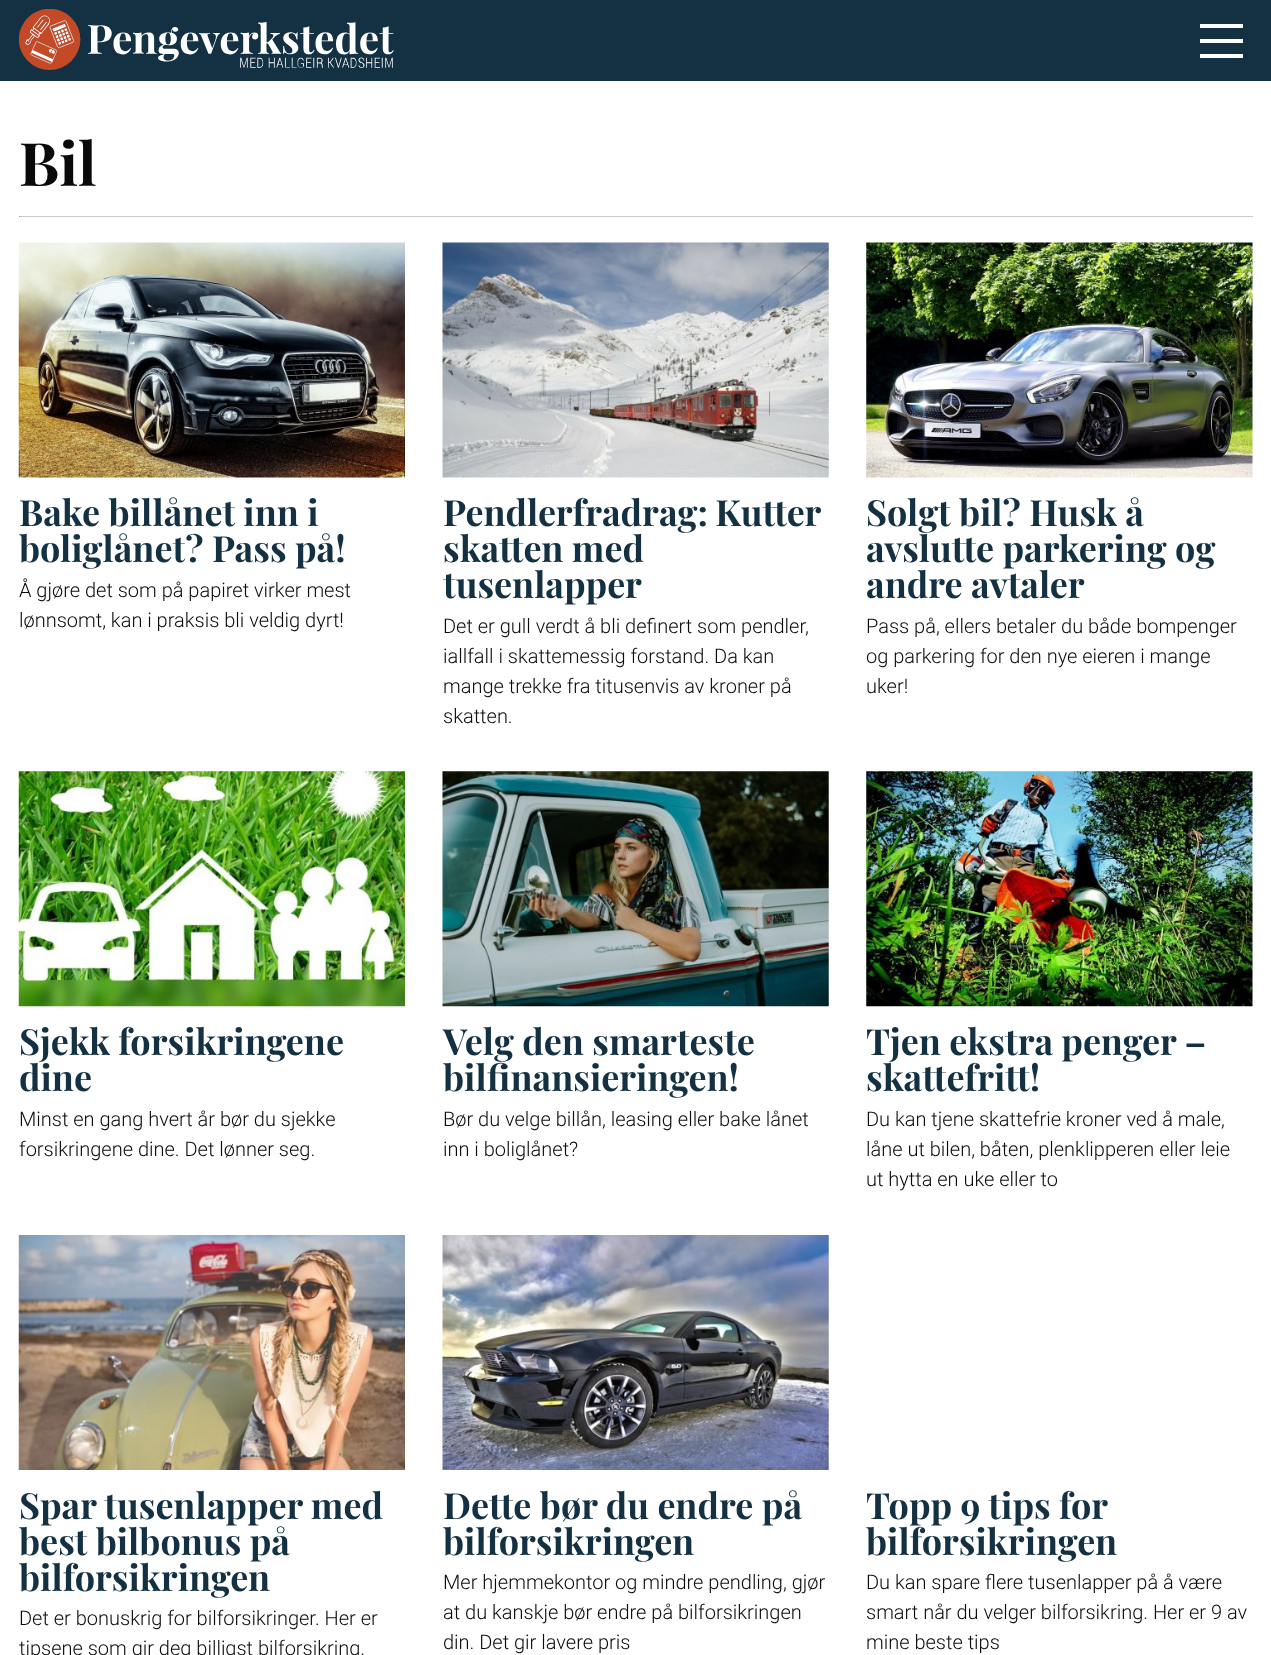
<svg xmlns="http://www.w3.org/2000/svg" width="1271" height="1655">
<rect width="100%" height="100%" fill="#fff"/>
<rect width="1271" height="81" fill="#133143"/>
<image x="19" y="9" width="375" height="61" href="media/1.png"/>
<rect x="1200" y="39" width="43" height="4" fill="#fff"/>
<rect x="1200" y="24" width="43" height="4" fill="#fff"/>
<rect x="1200" y="54" width="43" height="4" fill="#fff"/>
<text x="19" y="186" style="font-family:Playfair Display;font-size:60px;font-weight:bold;fill:#0a0a0a">Bil</text>
<rect x="19" y="216" width="1234" height="1" fill="#cacaca"/>
<rect x="19" y="216" width="1" height="1" fill="#9f9f9f"/>
<image x="18" y="242" width="387" height="236" href="media/2.png"/>
<text x="19" y="526" style="font-family:Playfair Display;font-size:36px;font-weight:bold;fill:#133143">Bake billånet inn i</text>
<text x="19" y="562" style="font-family:Playfair Display;font-size:36px;font-weight:bold;fill:#133143">boliglånet? Pass på!</text>
<text x="19" y="597" style="font-family:Roboto;font-size:20px;font-weight:300;fill:#0a0a0a">Å gjøre det som på papiret virker mest</text>
<text x="19" y="627" style="font-family:Roboto;font-size:20px;font-weight:300;fill:#0a0a0a">lønnsomt, kan i praksis bli veldig dyrt!</text>
<image x="442" y="242" width="387" height="236" href="media/3.png"/>
<text x="443" y="526" word-spacing="-1" style="font-family:Playfair Display;font-size:36px;font-weight:bold;fill:#133143">Pendlerfradrag: Kutter</text>
<text x="443" y="562" style="font-family:Playfair Display;font-size:36px;font-weight:bold;fill:#133143">skatten med</text>
<text x="443" y="598" style="font-family:Playfair Display;font-size:36px;font-weight:bold;fill:#133143">tusenlapper</text>
<text x="443" y="633" style="font-family:Roboto;font-size:20px;font-weight:300;fill:#0a0a0a">Det er gull verdt å bli definert som pendler,</text>
<text x="443" y="663" style="font-family:Roboto;font-size:20px;font-weight:300;fill:#0a0a0a">iallfall i skattemessig forstand. Da kan</text>
<text x="443" y="693" style="font-family:Roboto;font-size:20px;font-weight:300;fill:#0a0a0a">mange trekke fra titusenvis av kroner på</text>
<text x="443" y="723" style="font-family:Roboto;font-size:20px;font-weight:300;fill:#0a0a0a">skatten.</text>
<image x="866" y="242" width="387" height="236" href="media/4.png"/>
<text x="866" y="526" style="font-family:Playfair Display;font-size:36px;font-weight:bold;fill:#133143">Solgt bil? Husk å</text>
<text x="866" y="562" style="font-family:Playfair Display;font-size:36px;font-weight:bold;fill:#133143">avslutte parkering og</text>
<text x="866" y="598" style="font-family:Playfair Display;font-size:36px;font-weight:bold;fill:#133143">andre avtaler</text>
<text x="866" y="633" style="font-family:Roboto;font-size:20px;font-weight:300;fill:#0a0a0a">Pass på, ellers betaler du både bompenger</text>
<text x="866" y="663" style="font-family:Roboto;font-size:20px;font-weight:300;fill:#0a0a0a">og parkering for den nye eieren i mange</text>
<text x="866" y="693" style="font-family:Roboto;font-size:20px;font-weight:300;fill:#0a0a0a">uker!</text>
<image x="18" y="771" width="387" height="236" href="media/5.png"/>
<text x="19" y="1055" style="font-family:Playfair Display;font-size:36px;font-weight:bold;fill:#133143">Sjekk forsikringene</text>
<text x="19" y="1091" style="font-family:Playfair Display;font-size:36px;font-weight:bold;fill:#133143">dine</text>
<text x="19" y="1126" style="font-family:Roboto;font-size:20px;font-weight:300;fill:#0a0a0a">Minst en gang hvert år bør du sjekke</text>
<text x="19" y="1156" style="font-family:Roboto;font-size:20px;font-weight:300;fill:#0a0a0a">forsikringene dine. Det lønner seg.</text>
<image x="442" y="771" width="387" height="236" href="media/6.png"/>
<text x="443" y="1055" style="font-family:Playfair Display;font-size:36px;font-weight:bold;fill:#133143">Velg den smarteste</text>
<text x="443" y="1091" style="font-family:Playfair Display;font-size:36px;font-weight:bold;fill:#133143">bilfinansieringen!</text>
<text x="443" y="1126" style="font-family:Roboto;font-size:20px;font-weight:300;fill:#0a0a0a">Bør du velge billån, leasing eller bake lånet</text>
<text x="443" y="1156" style="font-family:Roboto;font-size:20px;font-weight:300;fill:#0a0a0a">inn i boliglånet?</text>
<image x="866" y="771" width="387" height="236" href="media/7.png"/>
<text x="866" y="1055" style="font-family:Playfair Display;font-size:36px;font-weight:bold;fill:#133143">Tjen ekstra penger –</text>
<text x="866" y="1091" style="font-family:Playfair Display;font-size:36px;font-weight:bold;fill:#133143">skattefritt!</text>
<text x="866" y="1126" style="font-family:Roboto;font-size:20px;font-weight:300;fill:#0a0a0a">Du kan tjene skattefrie kroner ved å male,</text>
<text x="866" y="1156" style="font-family:Roboto;font-size:20px;font-weight:300;fill:#0a0a0a">låne ut bilen, båten, plenklipperen eller leie</text>
<text x="866" y="1186" style="font-family:Roboto;font-size:20px;font-weight:300;fill:#0a0a0a">ut hytta en uke eller to</text>
<image x="18" y="1235" width="387" height="235" href="media/8.png"/>
<text x="19" y="1519" style="font-family:Playfair Display;font-size:36px;font-weight:bold;fill:#133143">Spar tusenlapper med</text>
<text x="19" y="1555" style="font-family:Playfair Display;font-size:36px;font-weight:bold;fill:#133143">best bilbonus på</text>
<text x="19" y="1591" style="font-family:Playfair Display;font-size:36px;font-weight:bold;fill:#133143">bilforsikringen</text>
<text x="19" y="1625" style="font-family:Roboto;font-size:20px;font-weight:300;fill:#0a0a0a">Det er bonuskrig for bilforsikringer. Her er</text>
<text x="19" y="1655" style="font-family:Roboto;font-size:20px;font-weight:300;fill:#0a0a0a">tipsene som gir deg billigst bilforsikring.</text>
<image x="442" y="1235" width="387" height="235" href="media/9.png"/>
<text x="443" y="1519" style="font-family:Playfair Display;font-size:36px;font-weight:bold;fill:#133143">Dette bør du endre på</text>
<text x="443" y="1555" style="font-family:Playfair Display;font-size:36px;font-weight:bold;fill:#133143">bilforsikringen</text>
<text x="443" y="1589" style="font-family:Roboto;font-size:20px;font-weight:300;fill:#0a0a0a">Mer hjemmekontor og mindre pendling, gjør</text>
<text x="443" y="1619" style="font-family:Roboto;font-size:20px;font-weight:300;fill:#0a0a0a">at du kanskje bør endre på bilforsikringen</text>
<text x="443" y="1649" style="font-family:Roboto;font-size:20px;font-weight:300;fill:#0a0a0a">din. Det gir lavere pris</text>
<text x="866" y="1519" style="font-family:Playfair Display;font-size:36px;font-weight:bold;fill:#133143">Topp 9 tips for</text>
<text x="866" y="1555" style="font-family:Playfair Display;font-size:36px;font-weight:bold;fill:#133143">bilforsikringen</text>
<text x="866" y="1589" style="font-family:Roboto;font-size:20px;font-weight:300;fill:#0a0a0a">Du kan spare flere tusenlapper på å være</text>
<text x="866" y="1619" style="font-family:Roboto;font-size:20px;font-weight:300;fill:#0a0a0a">smart når du velger bilforsikring. Her er 9 av</text>
<text x="866" y="1649" style="font-family:Roboto;font-size:20px;font-weight:300;fill:#0a0a0a">mine beste tips</text>
</svg>
